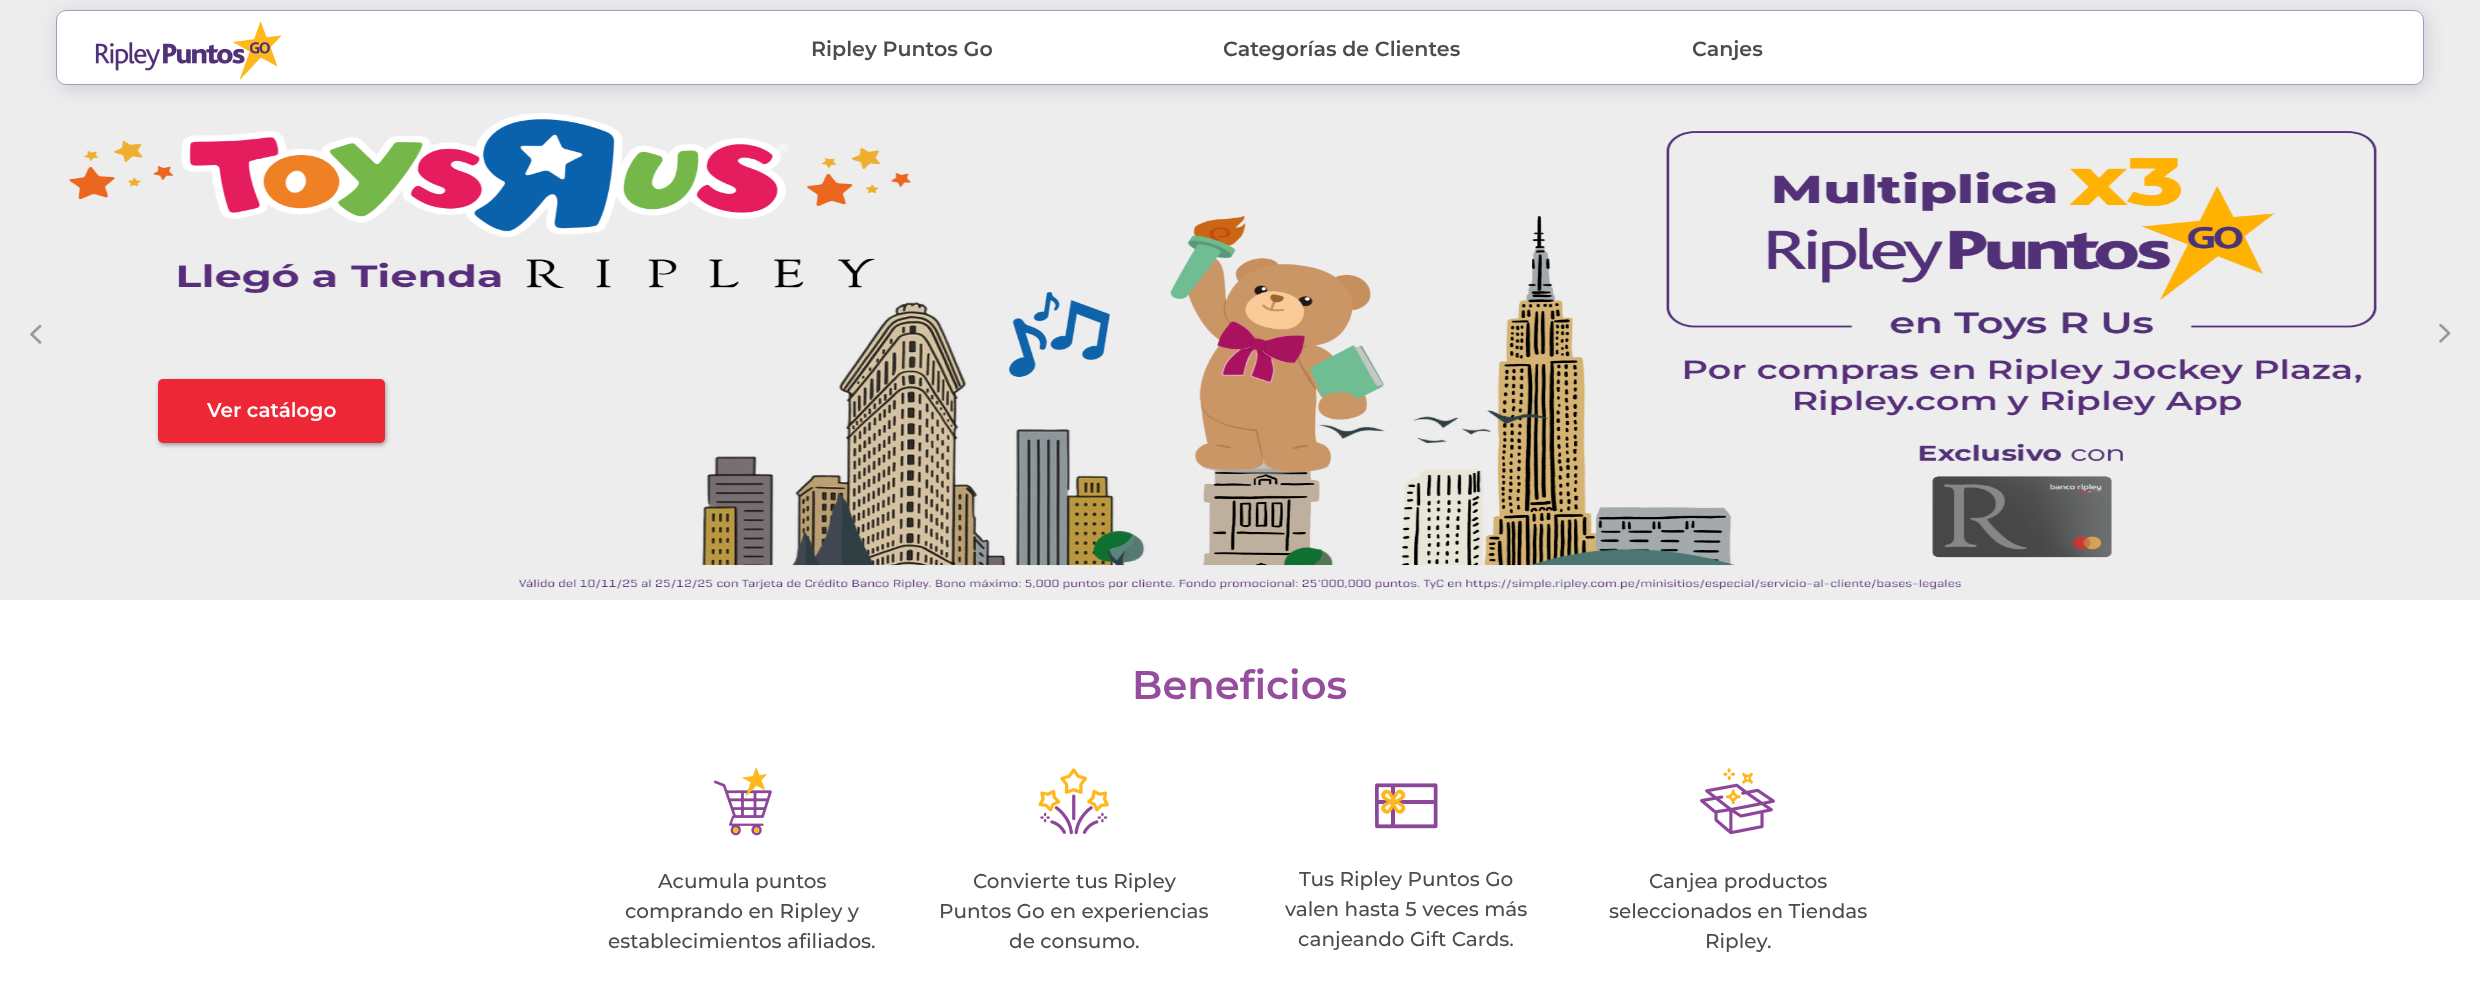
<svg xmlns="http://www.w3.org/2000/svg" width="2480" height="1001">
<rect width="100%" height="100%" fill="#fff"/>
<image x="0" y="0" width="2480" height="600" href="media/4.png"/>
<rect x="59" y="13" width="2367" height="75" rx="10" fill="#52317833" filter="blur(9.5px)"/>
<rect x="56" y="10" width="2368" height="75" rx="10" fill="#fff"/>
<rect x="56.5" y="10.5" width="2367" height="74" rx="9.5" fill="none" stroke="#52317880"/>
<image x="95" y="21" width="187" height="59" href="media/1.png"/>
<text x="811" y="56" style="font-family:Montserrat;font-size:20.6px;font-weight:600;fill:#4c4c4c">Ripley Puntos Go</text>
<text x="1223" y="56" style="font-family:Montserrat;font-size:20.6px;font-weight:600;fill:#4c4c4c">Categorías de Clientes</text>
<text x="1692" y="56" style="font-family:Montserrat;font-size:20.6px;font-weight:600;fill:#4c4c4c">Canjes</text>
<image x="30" y="324" width="12" height="20" href="media/2.png"/>
<image x="2439" y="324" width="12" height="19" href="media/3.png"/>
<rect x="159" y="381" width="227" height="64" rx="5" fill="#4c4c4c80" filter="blur(2px)"/>
<rect x="158" y="379" width="227" height="64" rx="5" fill="#ee2737"/>
<text x="207" y="417" style="font-family:Montserrat;font-size:20px;font-weight:600;fill:#fff">Ver catálogo</text>
<text x="1132" y="699" style="font-family:Montserrat;font-size:40px;font-weight:600;fill:#964d9e">Beneficios</text>
<image x="713" y="767" width="59" height="69" href="media/5.png"/>
<text x="658" y="888" style="font-family:Montserrat;font-size:20px;font-weight:500;fill:#4c4c4c">Acumula puntos</text>
<text x="625" y="918" style="font-family:Montserrat;font-size:20px;font-weight:500;fill:#4c4c4c">comprando en Ripley y</text>
<text x="608" y="948" style="font-family:Montserrat;font-size:20px;font-weight:500;fill:#4c4c4c">establecimientos afiliados.</text>
<image x="1038" y="768" width="71" height="67" href="media/6.png"/>
<text x="973" y="888" style="font-family:Montserrat;font-size:20px;font-weight:500;fill:#4c4c4c">Convierte tus Ripley</text>
<text x="939" y="918" style="font-family:Montserrat;font-size:20px;font-weight:500;fill:#4c4c4c">Puntos Go en experiencias</text>
<text x="1009" y="948" style="font-family:Montserrat;font-size:20px;font-weight:500;fill:#4c4c4c">de consumo.</text>
<image x="1375" y="783" width="63" height="46" href="media/7.png"/>
<text x="1299" y="886" style="font-family:Montserrat;font-size:20px;font-weight:500;fill:#4c4c4c">Tus Ripley Puntos Go</text>
<text x="1285" y="916" style="font-family:Montserrat;font-size:20px;font-weight:500;fill:#4c4c4c">valen hasta 5 veces más</text>
<text x="1298" y="946" style="font-family:Montserrat;font-size:20px;font-weight:500;fill:#4c4c4c">canjeando Gift Cards.</text>
<image x="1700" y="768" width="75" height="67" href="media/8.png"/>
<text x="1649" y="888" style="font-family:Montserrat;font-size:20px;font-weight:500;fill:#4c4c4c">Canjea productos</text>
<text x="1609" y="918" style="font-family:Montserrat;font-size:20px;font-weight:500;fill:#4c4c4c">seleccionados en Tiendas</text>
<text x="1705" y="948" style="font-family:Montserrat;font-size:20px;font-weight:500;fill:#4c4c4c">Ripley.</text>
</svg>
